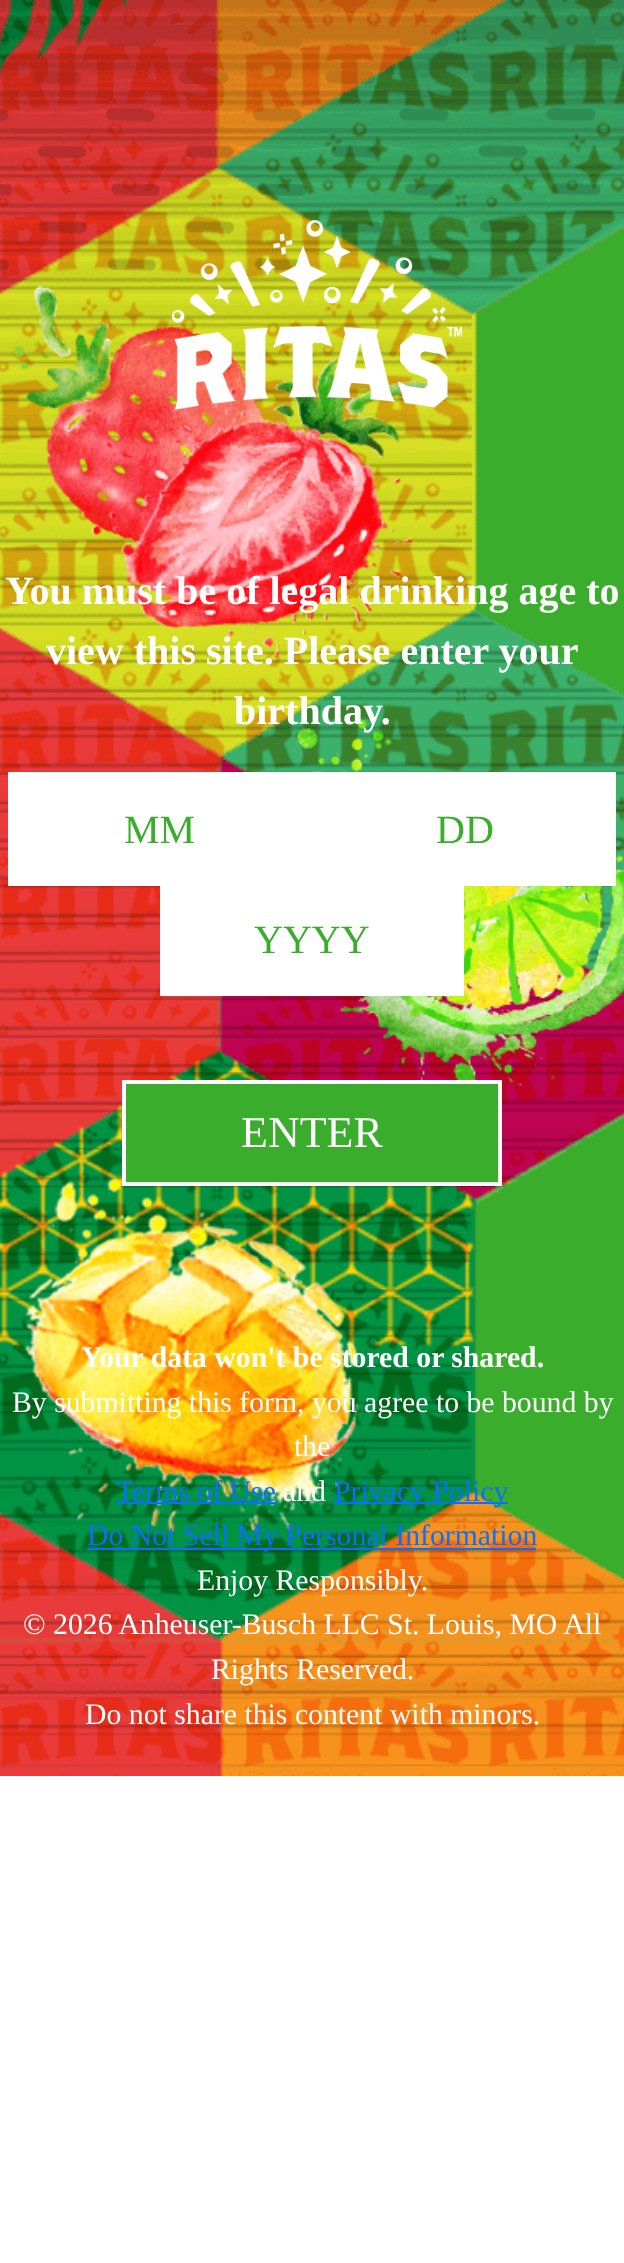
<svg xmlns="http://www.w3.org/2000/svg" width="624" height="2263">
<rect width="100%" height="100%" fill="#fff"/>
<image x="0" y="0" width="624" height="1776" href="media/1.png"/>
<image x="171" y="220" width="291" height="190" href="media/2.png"/>
<text x="5" y="604" style="font-family:Liberation Serif;font-size:40px;font-weight:bold;fill:#fff">You must be of legal drinking age to</text>
<text x="46" y="664" style="font-family:Liberation Serif;font-size:40px;font-weight:bold;fill:#fff">view this site. Please enter your</text>
<text x="234" y="724" style="font-family:Liberation Serif;font-size:40px;font-weight:bold;fill:#fff">birthday.</text>
<rect x="10" y="774" width="300" height="110" fill="#fff"/>
<rect x="9" y="773" width="302" height="112" fill="none" stroke="#fff" stroke-width="2"/>
<text x="124" y="843" style="font-family:Liberation Serif;font-size:40px;fill:#3aad2c">MM</text>
<rect x="314" y="774" width="300" height="110" fill="#fff"/>
<rect x="313" y="773" width="302" height="112" fill="none" stroke="#fff" stroke-width="2"/>
<text x="436" y="843" style="font-family:Liberation Serif;font-size:40px;fill:#3aad2c">DD</text>
<rect x="162" y="886" width="300" height="108" fill="#fff"/>
<rect x="161" y="883" width="302" height="112" fill="none" stroke="#fff" stroke-width="2"/>
<text x="254" y="953" style="font-family:Liberation Serif;font-size:40px;fill:#3aad2c">YYYY</text>
<rect x="124" y="1082" width="376" height="102" fill="#3aad2c" stroke="#fff" stroke-width="4"/>
<text x="241" y="1147" style="font-family:Liberation Serif;font-size:44px;fill:#fff">ENTER</text>
<text x="81" y="1367" style="font-family:Liberation Serif;font-size:29.75px;font-weight:bold;fill:#fff">Your data won't be stored or shared.</text>
<text x="12" y="1412" style="font-family:Liberation Serif;font-size:29.75px;fill:#fff">By submitting this form, you agree to be bound by</text>
<text x="294" y="1456" style="font-family:Liberation Serif;font-size:29.75px;fill:#fff">the</text>
<text x="116" y="1501" style="font-family:Liberation Serif;font-size:29.75px;fill:#0d6efd">Terms of Use</text>
<rect x="116" y="1502" width="160" height="2" fill="#0d6efd"/>
<text x="283" y="1501" style="font-family:Liberation Serif;font-size:29.75px;fill:#fff">and</text>
<rect x="334" y="1502" width="174" height="2" fill="#0d6efd"/>
<text x="334" y="1501" style="font-family:Liberation Serif;font-size:29.75px;fill:#0d6efd">Privacy Policy</text>
<rect x="88" y="1548" width="448" height="2" fill="#0d6efd"/>
<text x="87" y="1545" style="font-family:Liberation Serif;font-size:29.75px;fill:#0d6efd">Do Not Sell My Personal Information</text>
<text x="197" y="1590" style="font-family:Liberation Serif;font-size:29.75px;fill:#fff">Enjoy Responsibly.</text>
<text x="23" y="1634" style="font-family:Liberation Serif;font-size:29.75px;fill:#fff">© 2026 Anheuser-Busch LLC St. Louis, MO All</text>
<text x="211" y="1679" style="font-family:Liberation Serif;font-size:29.75px;fill:#fff">Rights Reserved.</text>
<text x="85" y="1724" style="font-family:Liberation Serif;font-size:29.75px;fill:#fff">Do not share this content with minors.</text>
</svg>
